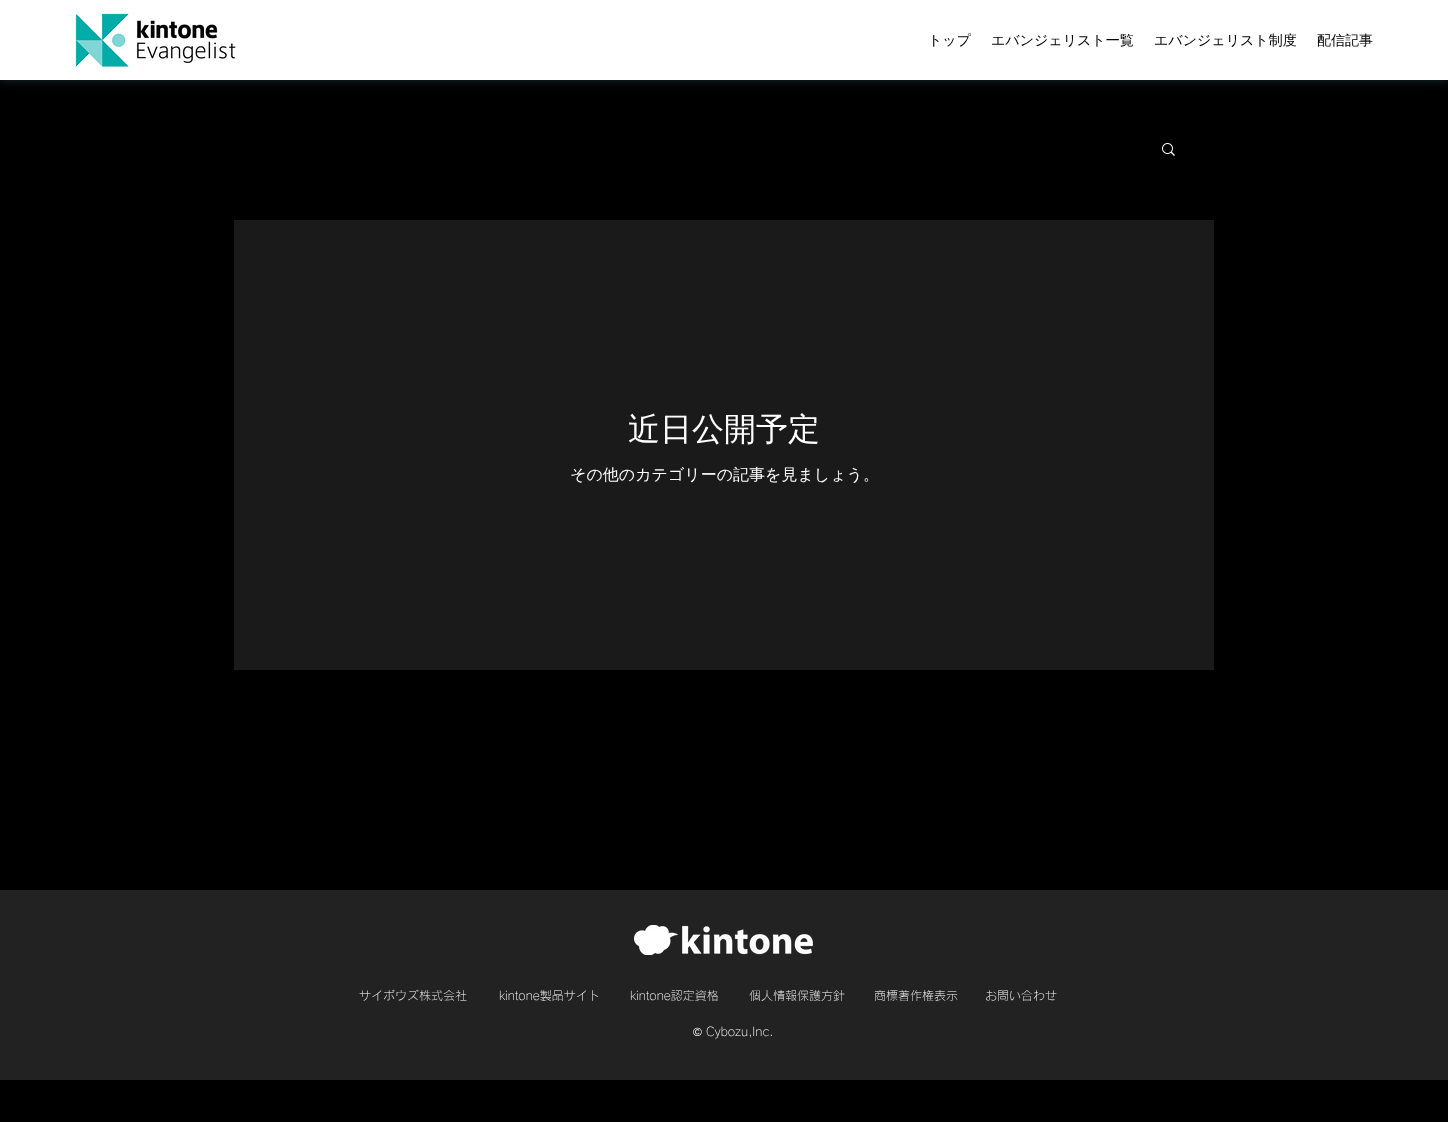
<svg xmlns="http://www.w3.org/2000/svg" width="1448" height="1122">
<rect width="100%" height="100%" fill="#000"/>
<rect y="1" width="1448" height="80" fill="#23495180" filter="blur(5px)"/>
<rect width="1448" height="80" fill="#fff"/>
<image x="75" y="13" width="161" height="54" href="media/1.png"/>
<text x="928" y="45" style="font-family:WenQuanYi Zen Hei;font-size:14px;font-weight:500;fill:#000">トップ</text>
<text x="991" y="45" style="font-family:WenQuanYi Zen Hei;font-size:14px;font-weight:500;fill:#000">エバンジェリスト一覧</text>
<text x="1154" y="45" style="font-family:WenQuanYi Zen Hei;font-size:14px;font-weight:500;fill:#000">エバンジェリスト制度</text>
<text x="1317" y="45" style="font-family:WenQuanYi Zen Hei;font-size:14px;font-weight:500;fill:#000">配信記事</text>
<image x="1162" y="143" width="13" height="13" href="media/2.png"/>
<rect x="234" y="220" width="980" height="450" fill="#1a1a1a"/>
<text x="628" y="440" style="font-family:WenQuanYi Zen Hei;font-size:32px;font-weight:500;fill:#fff">近日公開予定</text>
<text x="570" y="480" style="font-family:WenQuanYi Zen Hei;font-size:16px;font-weight:500;fill:#fff">その他のカテゴリーの記事を見ましょう。</text>
<rect y="890" width="1448" height="190" fill="#222"/>
<image x="634" y="925" width="179" height="30" href="media/3.png"/>
<text x="359" y="1000" style="font-family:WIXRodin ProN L;font-size:12px;font-weight:300;fill:#fff">サイボウズ株式会社</text>
<text x="499" y="1000" style="font-family:WIXRodin ProN L;font-size:12px;font-weight:300;fill:#fff">kintone製品サイト</text>
<text x="630" y="1000" style="font-family:WIXRodin ProN L;font-size:12px;font-weight:300;fill:#fff">kintone認定資格</text>
<text x="749" y="1000" style="font-family:WIXRodin ProN L;font-size:12px;font-weight:300;fill:#fff">個人情報保護方針</text>
<text x="874" y="1000" style="font-family:WIXRodin ProN L;font-size:12px;font-weight:300;fill:#fff">商標著作権表示</text>
<text x="985" y="1000" style="font-family:WIXRodin ProN L;font-size:12px;font-weight:300;fill:#fff">お問い合わせ</text>
<text x="693" y="1036" style="font-family:Liberation Sans;font-size:12px;fill:#fff">©</text>
<text x="706" y="1036" style="font-family:WIXRodin ProN L;font-size:12px;font-weight:300;fill:#fff">Cybozu,Inc.</text>
</svg>
